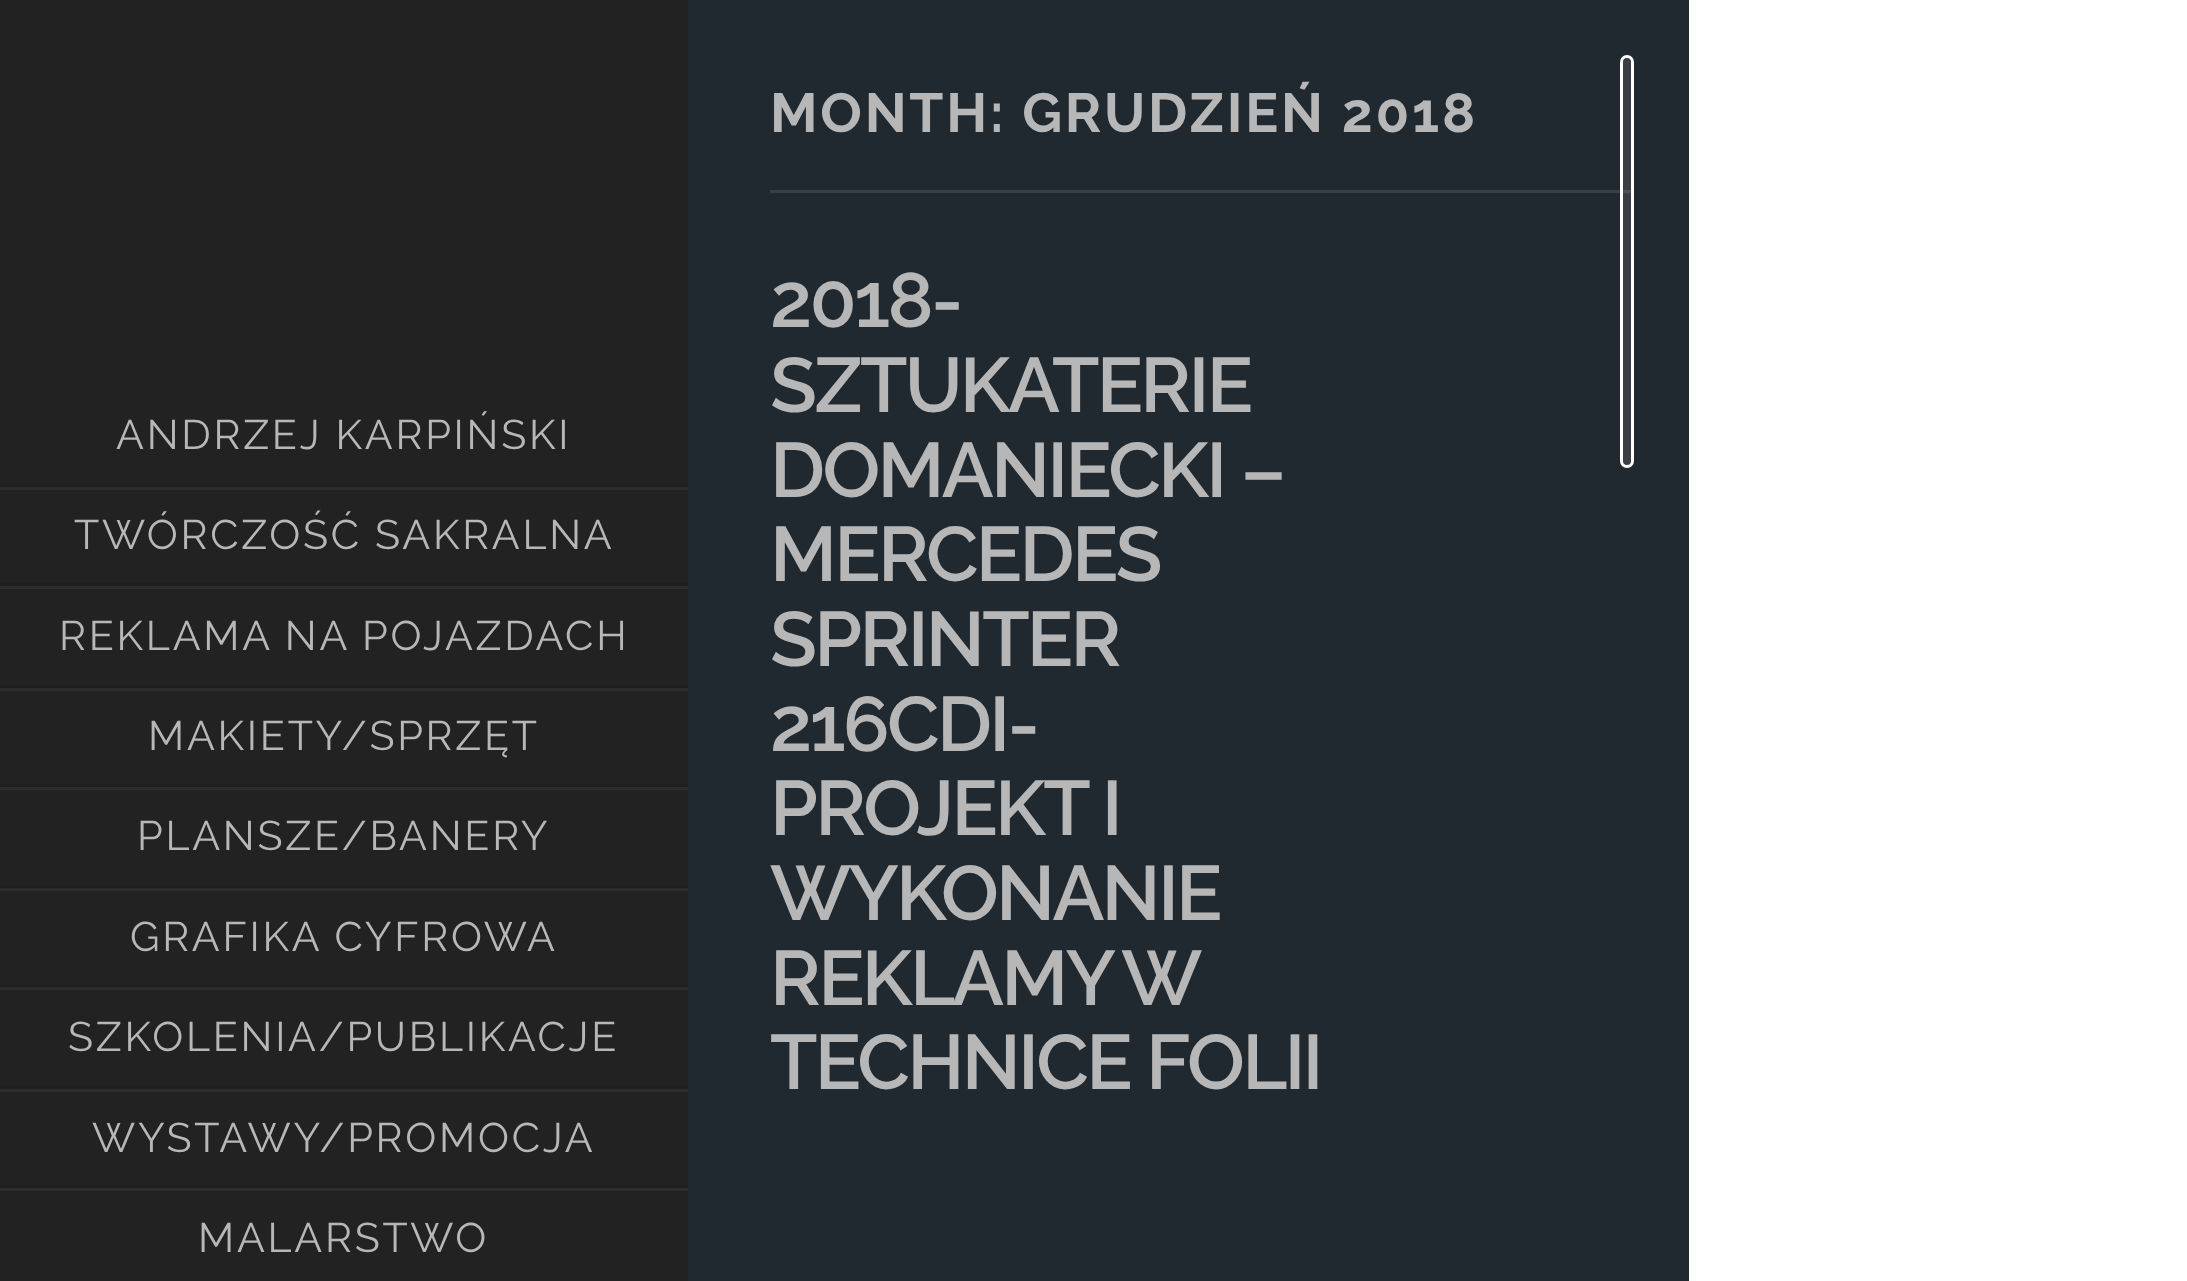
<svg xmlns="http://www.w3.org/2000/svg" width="2187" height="1281">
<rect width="100%" height="100%" fill="#fff"/>
<rect width="688" height="1281" fill="#222"/>
<rect y="988" width="688" height="2" fill="#2d2d2d"/>
<rect y="889" width="688" height="2" fill="#2d2d2d"/>
<rect y="484" width="688" height="3" fill="#1f1f1f"/>
<text x="116" y="449" style="font-family:Raleway;font-size:41.25px;letter-spacing:2.75px;fill:#b7b7b7">ANDRZEJ KARPIŃSKI</text>
<rect y="487" width="688" height="3" fill="#2d2d2d"/>
<rect y="583" width="688" height="3" fill="#1f1f1f"/>
<text x="74" y="549" style="font-family:Raleway;font-size:41.25px;letter-spacing:2.75px;fill:#b7b7b7">TWÓRCZOŚĆ SAKRALNA</text>
<rect y="586" width="688" height="3" fill="#2d2d2d"/>
<rect y="685" width="688" height="3" fill="#1f1f1f"/>
<text x="59" y="650" style="font-family:Raleway;font-size:41.25px;letter-spacing:2.75px;fill:#b7b7b7">REKLAMA NA POJAZDACH</text>
<rect y="688" width="688" height="3" fill="#2d2d2d"/>
<rect y="784" width="688" height="3" fill="#1f1f1f"/>
<text x="148" y="750" style="font-family:Raleway;font-size:41.25px;letter-spacing:2.75px;fill:#b7b7b7">MAKIETY/SPRZĘT</text>
<rect y="787" width="688" height="3" fill="#2d2d2d"/>
<rect y="886" width="688" height="2" fill="#1f1f1f"/>
<rect y="888" width="688" height="1" fill="#2a2a2a"/>
<text x="137" y="850" style="font-family:Raleway;font-size:41.25px;letter-spacing:2.75px;fill:#b7b7b7">PLANSZE/BANERY</text>
<rect y="985" width="688" height="2" fill="#1f1f1f"/>
<rect y="987" width="688" height="1" fill="#2a2a2a"/>
<text x="130" y="951" style="font-family:Raleway;font-size:41.25px;letter-spacing:2.75px;fill:#b7b7b7">GRAFIKA CYFROWA</text>
<rect y="1086" width="688" height="3" fill="#1f1f1f"/>
<text x="68" y="1051" style="font-family:Raleway;font-size:41.25px;letter-spacing:2.75px;fill:#b7b7b7">SZKOLENIA/PUBLIKACJE</text>
<rect y="1089" width="688" height="3" fill="#2d2d2d"/>
<rect y="1185" width="688" height="3" fill="#1f1f1f"/>
<text x="92" y="1152" style="font-family:Raleway;font-size:41.25px;letter-spacing:2.75px;fill:#b7b7b7">WYSTAWY/PROMOCJA</text>
<rect y="1188" width="688" height="3" fill="#2d2d2d"/>
<text x="198" y="1252" style="font-family:Raleway;font-size:41.25px;letter-spacing:2.75px;fill:#b7b7b7">MALARSTWO</text>
<rect x="688" width="1001" height="1281" fill="#212930"/>
<rect x="770" y="190" width="864" height="3" fill="#394045"/>
<text x="770" y="132" style="font-family:Raleway;font-size:55px;font-weight:bold;letter-spacing:2.75px;fill:#b7b7b7">MONTH: GRUDZIEŃ 2018</text>
<text x="770" y="327" style="font-family:Raleway;font-size:77px;font-weight:600;letter-spacing:-2.75px;fill:#b7b7b7">2018-</text>
<text x="770" y="412" style="font-family:Raleway;font-size:77px;font-weight:600;letter-spacing:-2.75px;fill:#b7b7b7">SZTUKATERIE</text>
<text x="770" y="497" style="font-family:Raleway;font-size:77px;font-weight:600;letter-spacing:-2.75px;fill:#b7b7b7">DOMANIECKI –</text>
<text x="770" y="581" style="font-family:Raleway;font-size:77px;font-weight:600;letter-spacing:-2.75px;fill:#b7b7b7">MERCEDES</text>
<text x="770" y="666" style="font-family:Raleway;font-size:77px;font-weight:600;letter-spacing:-2.75px;fill:#b7b7b7">SPRINTER</text>
<text x="770" y="751" style="font-family:Raleway;font-size:77px;font-weight:600;letter-spacing:-2.75px;fill:#b7b7b7">216CDI-</text>
<text x="770" y="835" style="font-family:Raleway;font-size:77px;font-weight:600;letter-spacing:-2.75px;fill:#b7b7b7">PROJEKT I</text>
<text x="770" y="920" style="font-family:Raleway;font-size:77px;font-weight:600;letter-spacing:-2.75px;fill:#b7b7b7">WYKONANIE</text>
<text x="770" y="1005" word-spacing="-3" style="font-family:Raleway;font-size:77px;font-weight:600;letter-spacing:-2.75px;fill:#b7b7b7">REKLAMY W</text>
<text x="770" y="1089" style="font-family:Raleway;font-size:77px;font-weight:600;letter-spacing:-2.75px;fill:#b7b7b7">TECHNICE FOLII</text>
<rect x="1621.5" y="56.5" width="11" height="410" rx="5.5" fill="#9b9b9b33" stroke="#fff" stroke-width="3"/>
</svg>
